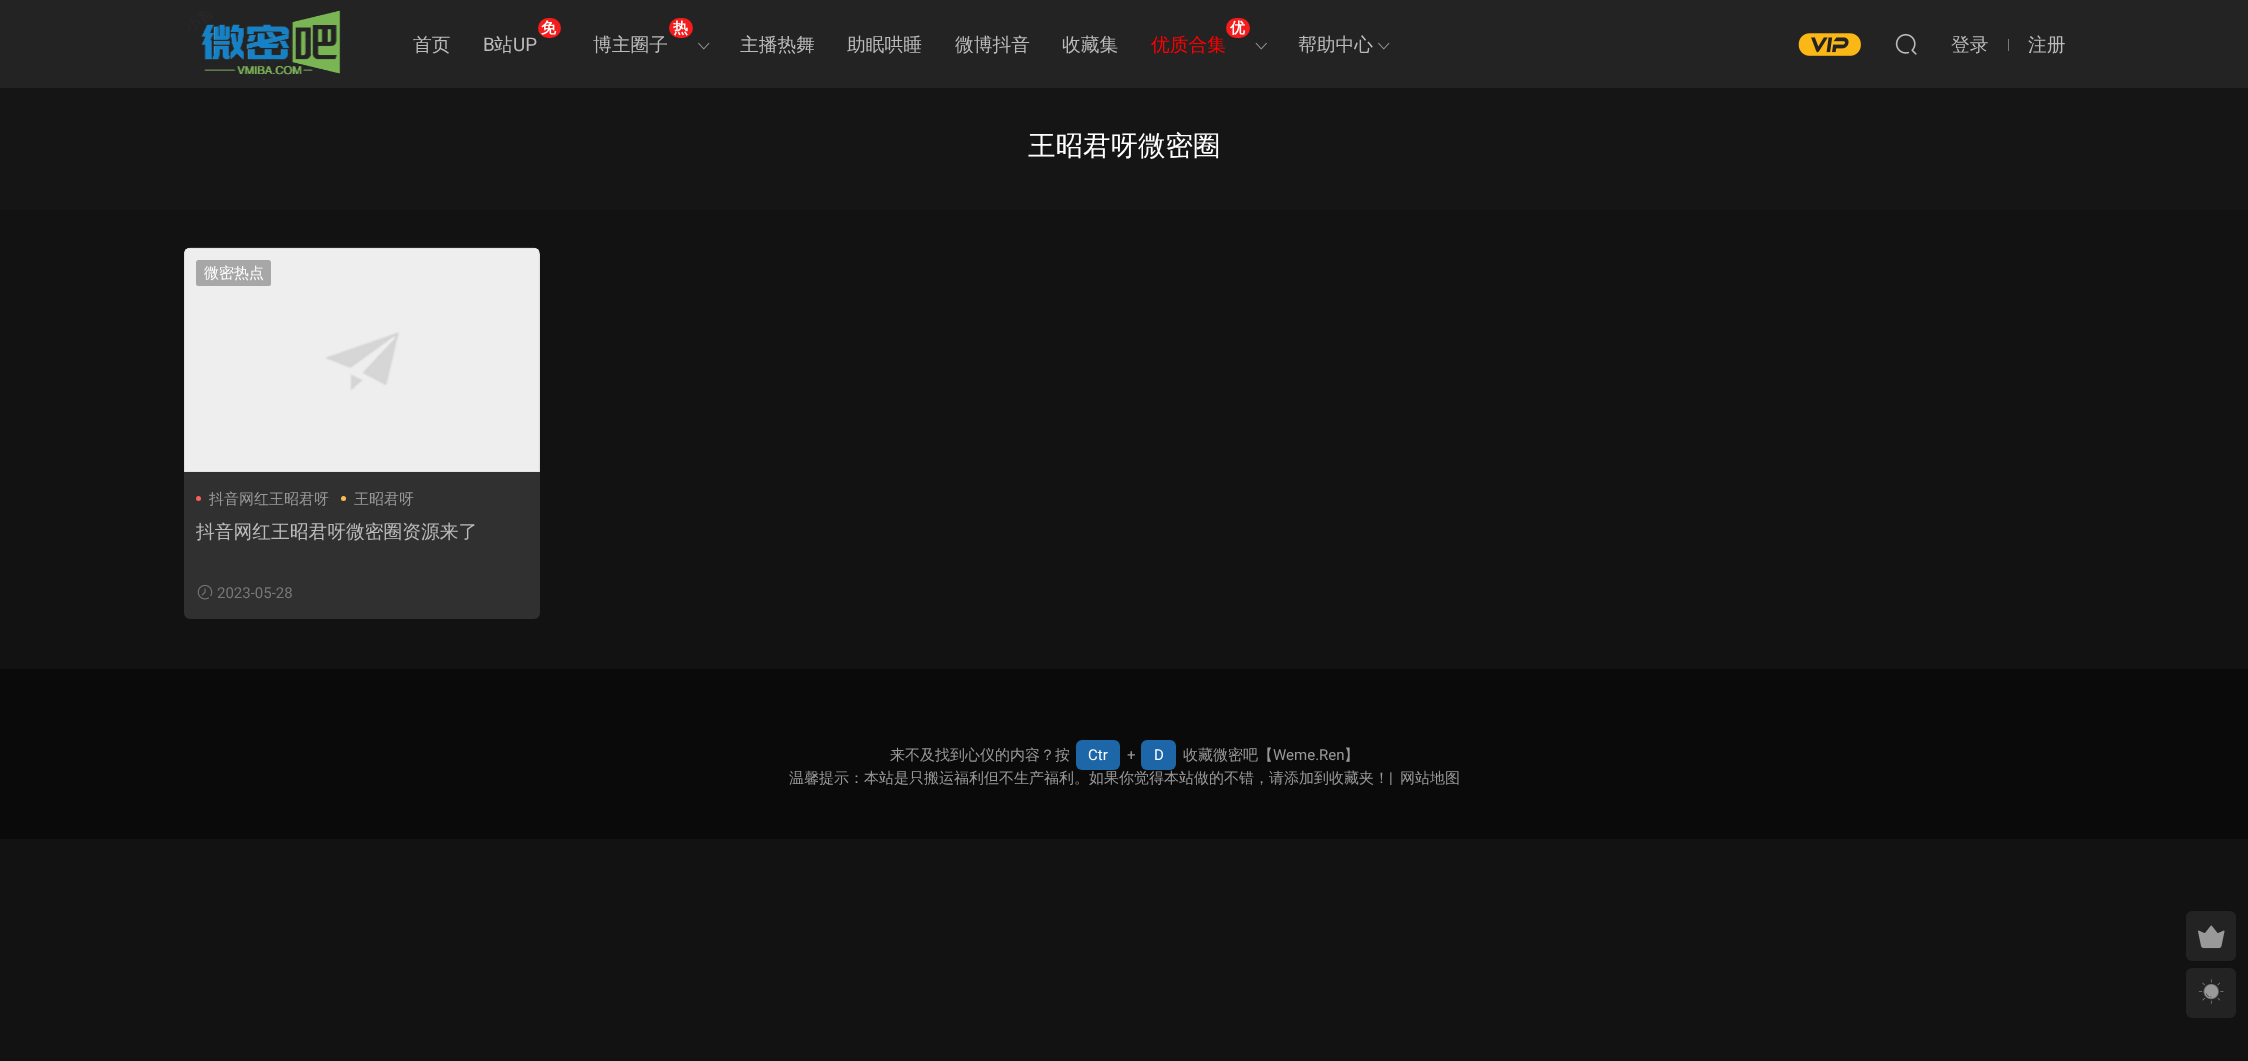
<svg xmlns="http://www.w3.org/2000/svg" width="2248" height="1061">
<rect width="100%" height="100%" fill="#121212"/>
<rect width="2248" height="88" fill="#232323"/>
<image x="187" y="10" width="154" height="70" href="media/1.png"/>
<text x="413" y="51" style="font-family:WenQuanYi Zen Hei;font-size:18.75px;font-weight:500;fill:#bbb">首页</text>
<rect x="538" y="18" width="23" height="20" rx="10" fill="#f51c1c"/>
<text x="541" y="33" style="font-family:WenQuanYi Zen Hei;font-size:15px;font-weight:bold;letter-spacing:1px;fill:#fff">免</text>
<text x="483" y="51" style="font-family:Roboto;font-size:18.75px;fill:#bbb">B</text>
<text x="494" y="51" style="font-family:WenQuanYi Zen Hei;font-size:18.75px;font-weight:500;fill:#bbb">站</text>
<text x="513" y="51" style="font-family:Roboto;font-size:18.75px;fill:#bbb">UP</text>
<rect x="669" y="18" width="24" height="20" rx="10" fill="#f51c1c"/>
<text x="673" y="33" style="font-family:WenQuanYi Zen Hei;font-size:15px;font-weight:bold;letter-spacing:1px;fill:#fff">热</text>
<text x="593" y="51" style="font-family:WenQuanYi Zen Hei;font-size:18.75px;font-weight:500;fill:#bbb">博主圈子</text>
<image x="698" y="42" width="12" height="8" href="media/2.png"/>
<text x="740" y="51" style="font-family:WenQuanYi Zen Hei;font-size:18.75px;font-weight:500;fill:#bbb">主播热舞</text>
<text x="847" y="51" style="font-family:WenQuanYi Zen Hei;font-size:18.75px;font-weight:500;fill:#bbb">助眠哄睡</text>
<text x="955" y="51" style="font-family:WenQuanYi Zen Hei;font-size:18.75px;font-weight:500;fill:#bbb">微博抖音</text>
<text x="1062" y="51" style="font-family:WenQuanYi Zen Hei;font-size:18.75px;font-weight:500;fill:#bbb">收藏集</text>
<rect x="1226" y="18" width="24" height="20" rx="10" fill="#f51c1c"/>
<text x="1230" y="33" style="font-family:WenQuanYi Zen Hei;font-size:15px;font-weight:bold;letter-spacing:1px;fill:#fff">优</text>
<text x="1151" y="51" style="font-family:WenQuanYi Zen Hei;font-size:18.75px;font-weight:500;fill:#f00">优质合集</text>
<image x="1255" y="42" width="12" height="8" href="media/3.png"/>
<text x="1298" y="51" style="font-family:WenQuanYi Zen Hei;font-size:18.75px;font-weight:500;fill:#bbb">帮助中心</text>
<image x="1378" y="42" width="12" height="8" href="media/2.png"/>
<image x="1798" y="33" width="63" height="23" href="media/4.png"/>
<image x="1895" y="33" width="22" height="22" href="media/5.png"/>
<text x="1951" y="51" style="font-family:WenQuanYi Zen Hei;font-size:18.75px;font-weight:500;fill:#bbb">登录</text>
<rect x="2008" y="39" width="1" height="12" fill="#777"/>
<text x="2028" y="51" style="font-family:WenQuanYi Zen Hei;font-size:18.75px;font-weight:500;fill:#bbb">注册</text>
<rect y="88" width="2248" height="122" fill="#151515"/>
<text x="1028" y="155" style="font-family:WenQuanYi Zen Hei;font-size:27.5px;font-weight:500;fill:#fff">王昭君呀微密圈</text>
<rect x="184" y="248" width="356" height="371" rx="6" fill="#303030"/>
<path d="M190 248h344c3.5 0 6 2.5 6 6v219h-356v-219c0-3.5 2.5-6 6-6z" fill="#151515"/>
<image x="184" y="247" width="356" height="226" href="media/6.png"/>
<rect x="196" y="260" width="75" height="26" rx="2.5" fill="#a7a7a7"/>
<text x="204" y="278" style="font-family:WenQuanYi Zen Hei;font-size:15px;font-weight:500;fill:#fff">微密热点</text>
<circle cx="198.5" cy="498.5" r="2.5" fill="#ff5e5c"/>
<text x="209" y="504" style="font-family:WenQuanYi Zen Hei;font-size:15px;font-weight:500;fill:#999">抖音网红王昭君呀</text>
<circle cx="343.5" cy="498.5" r="2.5" fill="#ffbb50"/>
<text x="354" y="504" style="font-family:WenQuanYi Zen Hei;font-size:15px;font-weight:500;fill:#999">王昭君呀</text>
<text x="196" y="538" style="font-family:WenQuanYi Zen Hei;font-size:18.75px;font-weight:500;fill:#bbb">抖音网红王昭君呀微密圈资源来了</text>
<image x="197" y="585" width="16" height="15" href="media/7.png"/>
<text x="217" y="598" style="font-family:Roboto;font-size:15px;fill:#777">2023-05-28</text>
<rect y="669" width="2248" height="170" fill="#0a0a0a"/>
<text x="890" y="760" style="font-family:WenQuanYi Zen Hei;font-size:15px;font-weight:500;fill:#999">来不及找到心仪的内容？按</text>
<rect x="1076" y="740" width="44" height="30" rx="6" fill="#1d67a9"/>
<text x="1088" y="760" style="font-family:Roboto;font-size:15px;fill:#fff">Ctr</text>
<text x="1127" y="760" style="font-family:Roboto;font-size:15px;fill:#999">+</text>
<rect x="1141" y="740" width="35" height="30" rx="6" fill="#1d67a9"/>
<text x="1154" y="760" style="font-family:Roboto;font-size:15px;fill:#fff">D</text>
<text x="1183" y="760" style="font-family:WenQuanYi Zen Hei;font-size:15px;font-weight:500;fill:#999">收藏微密吧【</text>
<text x="1273" y="760" style="font-family:Roboto;font-size:15px;fill:#999">Weme.Ren</text>
<text x="1344" y="760" style="font-family:WenQuanYi Zen Hei;font-size:15px;font-weight:500;fill:#999">】</text>
<text x="789" y="783" style="font-family:WenQuanYi Zen Hei;font-size:15px;font-weight:500;fill:#999">温馨提示：本站是只搬运福利但不生产福利。如果你觉得本站做的不错，请添加到收藏夹！</text>
<text x="1389" y="783" style="font-family:Roboto;font-size:15px;fill:#999">|</text>
<text x="1400" y="783" style="font-family:WenQuanYi Zen Hei;font-size:15px;font-weight:500;fill:#999">网站地图</text>
<rect x="2186" y="911" width="50" height="50" rx="6" fill="#232323"/>
<image x="2198" y="925" width="27" height="24" href="media/8.png"/>
<rect x="2186" y="968" width="50" height="50" rx="6" fill="#232323"/>
<image x="2198" y="979" width="26" height="25" href="media/9.png"/>
</svg>
